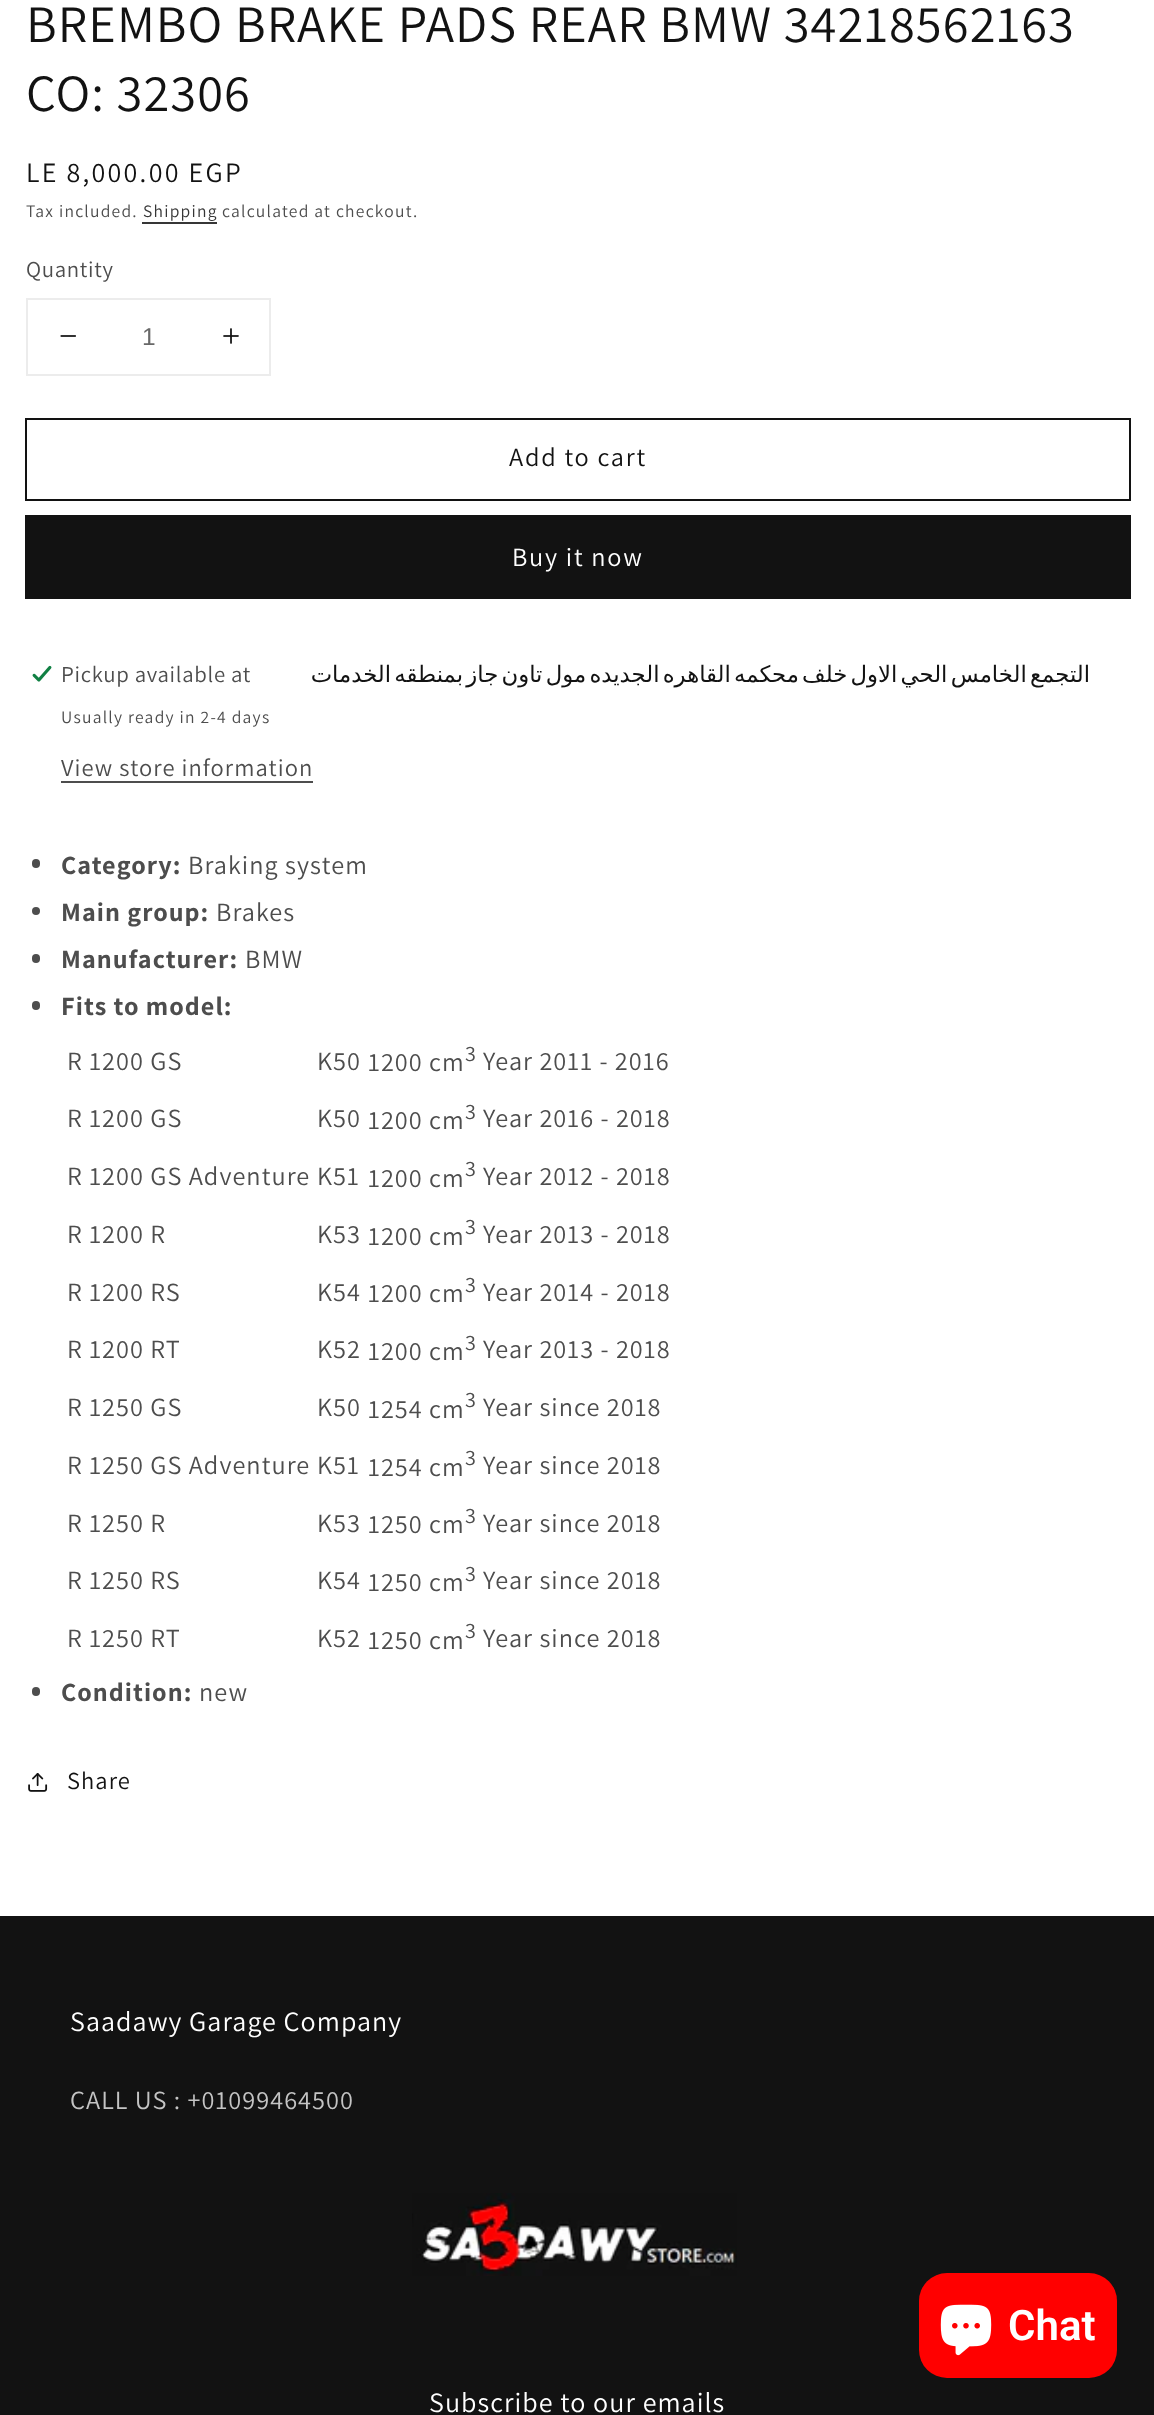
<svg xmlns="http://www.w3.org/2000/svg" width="1154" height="2415">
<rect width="100%" height="100%" fill="#fff"/>
<text x="26" y="42" style="font-family:Assistant;font-size:52.5px;letter-spacing:1.05px;fill:#121212">BREMBO BRAKE PADS REAR BMW 34218562163</text>
<text x="26" y="111" style="font-family:Assistant;font-size:52.5px;letter-spacing:1.05px;fill:#121212">CO: 32306</text>
<text x="26" y="182" style="font-family:Assistant;font-size:28px;letter-spacing:2.25px;fill:#121212">LE 8,000.00 EGP</text>
<text x="26" y="217" style="font-family:Assistant;font-size:17.5px;letter-spacing:1.25px;fill:#4d4d4d">Tax included.</text>
<text x="143" y="217" style="font-family:Assistant;font-size:17.5px;letter-spacing:1.25px;fill:#363636">Shipping</text>
<rect x="142" y="222" width="75" height="2" fill="#363636"/>
<text x="222" y="217" style="font-family:Assistant;font-size:17.5px;letter-spacing:1.25px;fill:#4d4d4d">calculated at checkout.</text>
<text x="26" y="277" style="font-family:Assistant;font-size:22.75px;letter-spacing:0.7px;fill:#4d4d4d">Quantity</text>
<rect x="27" y="299" width="243" height="76" fill="none" stroke="#ececec" stroke-width="2"/>
<image x="60" y="335" width="16" height="2" href="media/1.png"/>
<text x="142" y="345" style="font-family:Liberation Sans;font-size:24.5px;fill:#686868">1</text>
<image x="223" y="328" width="16" height="16" href="media/2.png"/>
<rect x="26" y="419" width="1104" height="81" fill="none" stroke="#121212" stroke-width="2"/>
<text x="509" y="466" style="font-family:Assistant;font-size:26.25px;letter-spacing:1.75px;fill:#121212">Add to cart</text>
<rect x="26" y="516" width="1104" height="82" fill="none" stroke="#121212" stroke-width="2"/>
<rect x="27" y="517" width="1102" height="80" fill="#121212"/>
<text x="512" y="566" style="font-family:Assistant;font-size:26.25px;letter-spacing:1.75px;fill:#fff">Buy it now</text>
<image x="32" y="665" width="20" height="17" href="media/3.png"/>
<text x="61" y="682" style="font-family:Assistant;font-size:22.75px;letter-spacing:0.7px;fill:#4d4d4d">Pickup available at</text>
<text x="1090" y="682" word-spacing="-4" style="font-family:DejaVu Sans;font-size:22.75px;letter-spacing:0.7px;direction:rtl;fill:#121212">التجمع الخامس الحي الاول خلف محكمه القاهره الجديده مول تاون جاز بمنطقه الخدمات</text>
<text x="61" y="723" style="font-family:Assistant;font-size:17.5px;letter-spacing:1.25px;fill:#4d4d4d">Usually ready in 2-4 days</text>
<text x="61" y="776" style="font-family:Assistant;font-size:24.5px;letter-spacing:1.05px;fill:#4d4d4d">View store information</text>
<rect x="61" y="781" width="252" height="2" fill="#4d4d4d"/>
<rect x="32" y="859" width="8" height="9" rx="4" fill="#4d4d4d"/>
<text x="61" y="874" style="font-family:Assistant;font-size:26.25px;font-weight:bold;letter-spacing:1.05px;fill:#4d4d4d">Category:</text>
<text x="188" y="874" style="font-family:Assistant;font-size:26.25px;letter-spacing:1.05px;fill:#4d4d4d">Braking system</text>
<circle cx="36" cy="911" r="4" fill="#4d4d4d"/>
<text x="61" y="921" style="font-family:Assistant;font-size:26.25px;font-weight:bold;letter-spacing:1.05px;fill:#4d4d4d">Main group:</text>
<text x="216" y="921" style="font-family:Assistant;font-size:26.25px;letter-spacing:1.05px;fill:#4d4d4d">Brakes</text>
<rect x="32" y="954" width="8" height="9" rx="4" fill="#4d4d4d"/>
<text x="61" y="968" style="font-family:Assistant;font-size:26.25px;font-weight:bold;letter-spacing:1.05px;fill:#4d4d4d">Manufacturer:</text>
<text x="245" y="968" style="font-family:Assistant;font-size:26.25px;letter-spacing:1.05px;fill:#4d4d4d">BMW</text>
<rect x="32" y="1001" width="8" height="9" rx="4" fill="#4d4d4d"/>
<text x="61" y="1015" style="font-family:Assistant;font-size:26.25px;font-weight:bold;letter-spacing:1.05px;fill:#4d4d4d">Fits to model:</text>
<text x="67" y="1070" style="font-family:Assistant;font-size:26.25px;letter-spacing:1.05px;fill:#4d4d4d">R 1200 GS</text>
<text x="317" y="1070" style="font-family:Assistant;font-size:26.25px;letter-spacing:1.05px;fill:#4d4d4d">K50</text>
<text x="368" y="1071" style="font-family:Assistant;font-size:26.25px;letter-spacing:1.05px;fill:#4d4d4d">1200 cm</text>
<text x="465" y="1061" style="font-family:Assistant;font-size:22px;letter-spacing:1.05px;fill:#4d4d4d">3</text>
<text x="483" y="1070" style="font-family:Assistant;font-size:26.25px;letter-spacing:1.05px;fill:#4d4d4d">Year 2011 - 2016</text>
<text x="67" y="1127" style="font-family:Assistant;font-size:26.25px;letter-spacing:1.05px;fill:#4d4d4d">R 1200 GS</text>
<text x="317" y="1127" style="font-family:Assistant;font-size:26.25px;letter-spacing:1.05px;fill:#4d4d4d">K50</text>
<text x="368" y="1129" style="font-family:Assistant;font-size:26.25px;letter-spacing:1.05px;fill:#4d4d4d">1200 cm</text>
<text x="465" y="1119" style="font-family:Assistant;font-size:22px;letter-spacing:1.05px;fill:#4d4d4d">3</text>
<text x="483" y="1127" style="font-family:Assistant;font-size:26.25px;letter-spacing:1.05px;fill:#4d4d4d">Year 2016 - 2018</text>
<text x="67" y="1185" style="font-family:Assistant;font-size:26.25px;letter-spacing:1.05px;fill:#4d4d4d">R 1200 GS Adventure</text>
<text x="317" y="1185" style="font-family:Assistant;font-size:26.25px;letter-spacing:1.05px;fill:#4d4d4d">K51</text>
<text x="368" y="1187" style="font-family:Assistant;font-size:26.25px;letter-spacing:1.05px;fill:#4d4d4d">1200 cm</text>
<text x="465" y="1176" style="font-family:Assistant;font-size:22px;letter-spacing:1.05px;fill:#4d4d4d">3</text>
<text x="483" y="1185" style="font-family:Assistant;font-size:26.25px;letter-spacing:1.05px;fill:#4d4d4d">Year 2012 - 2018</text>
<text x="67" y="1243" style="font-family:Assistant;font-size:26.25px;letter-spacing:1.05px;fill:#4d4d4d">R 1200 R</text>
<text x="317" y="1243" style="font-family:Assistant;font-size:26.25px;letter-spacing:1.05px;fill:#4d4d4d">K53</text>
<text x="368" y="1245" style="font-family:Assistant;font-size:26.25px;letter-spacing:1.05px;fill:#4d4d4d">1200 cm</text>
<text x="465" y="1234" style="font-family:Assistant;font-size:22px;letter-spacing:1.05px;fill:#4d4d4d">3</text>
<text x="483" y="1243" style="font-family:Assistant;font-size:26.25px;letter-spacing:1.05px;fill:#4d4d4d">Year 2013 - 2018</text>
<text x="67" y="1301" style="font-family:Assistant;font-size:26.25px;letter-spacing:1.05px;fill:#4d4d4d">R 1200 RS</text>
<text x="317" y="1301" style="font-family:Assistant;font-size:26.25px;letter-spacing:1.05px;fill:#4d4d4d">K54</text>
<text x="368" y="1302" style="font-family:Assistant;font-size:26.25px;letter-spacing:1.05px;fill:#4d4d4d">1200 cm</text>
<text x="465" y="1292" style="font-family:Assistant;font-size:22px;letter-spacing:1.05px;fill:#4d4d4d">3</text>
<text x="483" y="1301" style="font-family:Assistant;font-size:26.25px;letter-spacing:1.05px;fill:#4d4d4d">Year 2014 - 2018</text>
<text x="67" y="1358" style="font-family:Assistant;font-size:26.25px;letter-spacing:1.05px;fill:#4d4d4d">R 1200 RT</text>
<text x="317" y="1358" style="font-family:Assistant;font-size:26.25px;letter-spacing:1.05px;fill:#4d4d4d">K52</text>
<text x="368" y="1360" style="font-family:Assistant;font-size:26.25px;letter-spacing:1.05px;fill:#4d4d4d">1200 cm</text>
<text x="465" y="1350" style="font-family:Assistant;font-size:22px;letter-spacing:1.05px;fill:#4d4d4d">3</text>
<text x="483" y="1358" style="font-family:Assistant;font-size:26.25px;letter-spacing:1.05px;fill:#4d4d4d">Year 2013 - 2018</text>
<text x="67" y="1416" style="font-family:Assistant;font-size:26.25px;letter-spacing:1.05px;fill:#4d4d4d">R 1250 GS</text>
<text x="317" y="1416" style="font-family:Assistant;font-size:26.25px;letter-spacing:1.05px;fill:#4d4d4d">K50</text>
<text x="368" y="1418" style="font-family:Assistant;font-size:26.25px;letter-spacing:1.05px;fill:#4d4d4d">1254 cm</text>
<text x="465" y="1407" style="font-family:Assistant;font-size:22px;letter-spacing:1.05px;fill:#4d4d4d">3</text>
<text x="483" y="1416" style="font-family:Assistant;font-size:26.25px;letter-spacing:1.05px;fill:#4d4d4d">Year since 2018</text>
<text x="67" y="1474" style="font-family:Assistant;font-size:26.25px;letter-spacing:1.05px;fill:#4d4d4d">R 1250 GS Adventure</text>
<text x="317" y="1474" style="font-family:Assistant;font-size:26.25px;letter-spacing:1.05px;fill:#4d4d4d">K51</text>
<text x="368" y="1476" style="font-family:Assistant;font-size:26.25px;letter-spacing:1.05px;fill:#4d4d4d">1254 cm</text>
<text x="465" y="1465" style="font-family:Assistant;font-size:22px;letter-spacing:1.05px;fill:#4d4d4d">3</text>
<text x="483" y="1474" style="font-family:Assistant;font-size:26.25px;letter-spacing:1.05px;fill:#4d4d4d">Year since 2018</text>
<text x="67" y="1532" style="font-family:Assistant;font-size:26.25px;letter-spacing:1.05px;fill:#4d4d4d">R 1250 R</text>
<text x="317" y="1532" style="font-family:Assistant;font-size:26.25px;letter-spacing:1.05px;fill:#4d4d4d">K53</text>
<text x="368" y="1533" style="font-family:Assistant;font-size:26.25px;letter-spacing:1.05px;fill:#4d4d4d">1250 cm</text>
<text x="465" y="1523" style="font-family:Assistant;font-size:22px;letter-spacing:1.05px;fill:#4d4d4d">3</text>
<text x="483" y="1532" style="font-family:Assistant;font-size:26.25px;letter-spacing:1.05px;fill:#4d4d4d">Year since 2018</text>
<text x="67" y="1589" style="font-family:Assistant;font-size:26.25px;letter-spacing:1.05px;fill:#4d4d4d">R 1250 RS</text>
<text x="317" y="1589" style="font-family:Assistant;font-size:26.25px;letter-spacing:1.05px;fill:#4d4d4d">K54</text>
<text x="368" y="1591" style="font-family:Assistant;font-size:26.25px;letter-spacing:1.05px;fill:#4d4d4d">1250 cm</text>
<text x="465" y="1581" style="font-family:Assistant;font-size:22px;letter-spacing:1.05px;fill:#4d4d4d">3</text>
<text x="483" y="1589" style="font-family:Assistant;font-size:26.25px;letter-spacing:1.05px;fill:#4d4d4d">Year since 2018</text>
<text x="67" y="1647" style="font-family:Assistant;font-size:26.25px;letter-spacing:1.05px;fill:#4d4d4d">R 1250 RT</text>
<text x="317" y="1647" style="font-family:Assistant;font-size:26.25px;letter-spacing:1.05px;fill:#4d4d4d">K52</text>
<text x="368" y="1649" style="font-family:Assistant;font-size:26.25px;letter-spacing:1.05px;fill:#4d4d4d">1250 cm</text>
<text x="465" y="1638" style="font-family:Assistant;font-size:22px;letter-spacing:1.05px;fill:#4d4d4d">3</text>
<text x="483" y="1647" style="font-family:Assistant;font-size:26.25px;letter-spacing:1.05px;fill:#4d4d4d">Year since 2018</text>
<rect x="32" y="1687" width="8" height="9" rx="4" fill="#4d4d4d"/>
<text x="61" y="1701" style="font-family:Assistant;font-size:26.25px;font-weight:bold;letter-spacing:1.05px;fill:#4d4d4d">Condition:</text>
<text x="199" y="1701" style="font-family:Assistant;font-size:26.25px;letter-spacing:1.05px;fill:#4d4d4d">new</text>
<image x="28" y="1773" width="20" height="19" href="media/4.png"/>
<text x="67" y="1789" style="font-family:Assistant;font-size:24.5px;letter-spacing:1.05px;fill:#121212">Share</text>
<rect y="1916" width="1154" height="499" fill="#121212"/>
<text x="70" y="2031" style="font-family:Assistant;font-size:28px;letter-spacing:1.05px;fill:#fff">Saadawy Garage Company</text>
<text x="70" y="2109" style="font-family:Assistant;font-size:26.25px;letter-spacing:1.05px;fill:#c4c4c4">CALL US : +01099464500</text>
<image x="412" y="2193" width="325" height="83" href="media/5.png"/>
<text x="429" y="2412" style="font-family:Assistant;font-size:28px;letter-spacing:1.05px;fill:#fff">Subscribe to our emails</text>
<rect x="919" y="2273" width="198" height="105" rx="28" fill="#f00"/>
<image x="940" y="2304" width="52" height="52" href="media/6.png"/>
<text x="1008" y="2340" style="font-family:Roboto;font-size:42px;font-weight:600;fill:#fff">Chat</text>
</svg>
